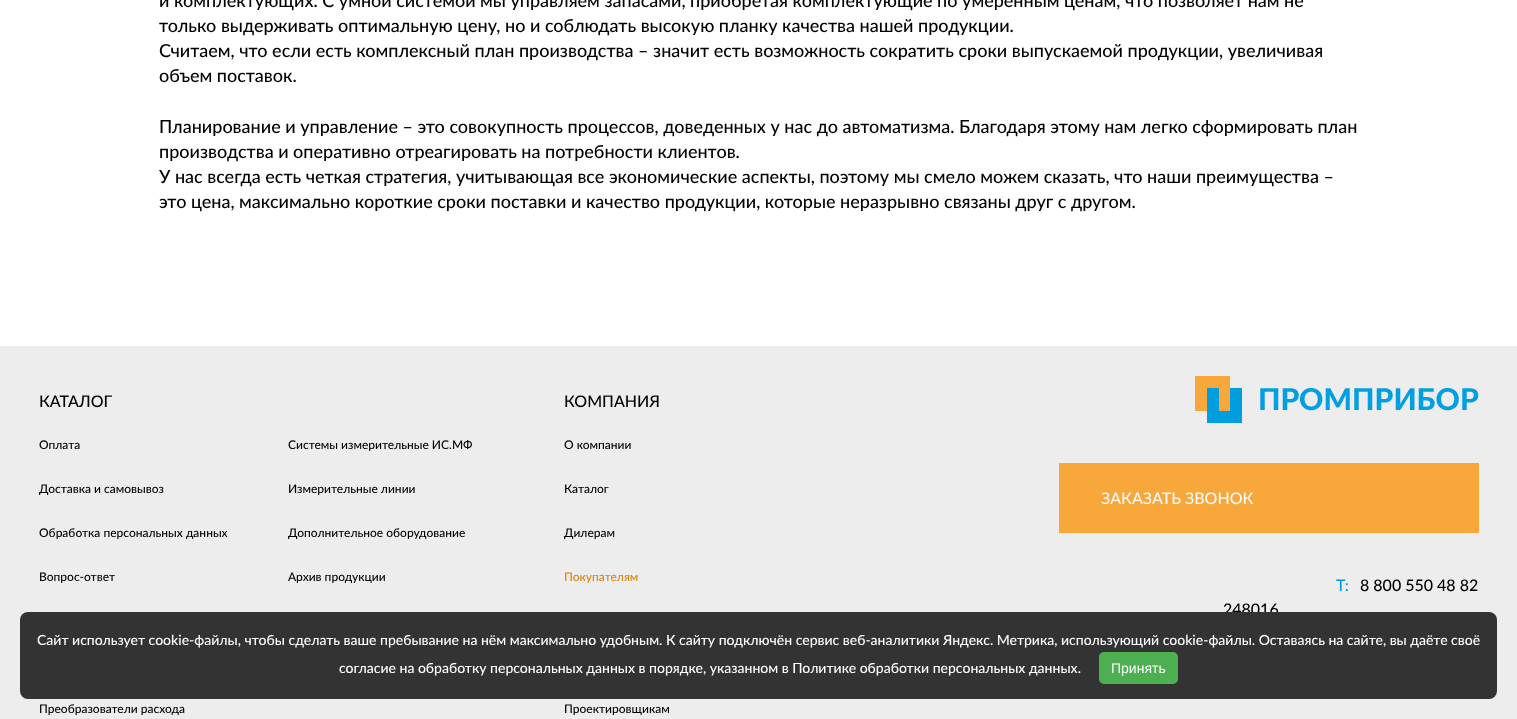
<svg xmlns="http://www.w3.org/2000/svg" width="1517" height="719">
<rect width="100%" height="100%" fill="#fff"/>
<text x="159" y="7" style="font-family:Lato;font-size:18px;font-weight:500;fill:#000">и комплектующих. С умной системой мы управляем запасами, приобретая комплектующие по умеренным ценам, что позволяет нам не</text>
<text x="159" y="32" style="font-family:Lato;font-size:18px;font-weight:500;fill:#000">только выдерживать оптимальную цену, но и соблюдать высокую планку качества нашей продукции.</text>
<text x="159" y="57" style="font-family:Lato;font-size:18px;font-weight:500;fill:#000">Считаем, что если есть комплексный план производства – значит есть возможность сократить сроки выпускаемой продукции, увеличивая</text>
<text x="159" y="82" style="font-family:Lato;font-size:18px;font-weight:500;fill:#000">объем поставок.</text>
<text x="159" y="133" style="font-family:Lato;font-size:18px;font-weight:500;fill:#000">Планирование и управление – это совокупность процессов, доведенных у нас до автоматизма. Благодаря этому нам легко сформировать план</text>
<text x="159" y="158" style="font-family:Lato;font-size:18px;font-weight:500;fill:#000">производства и оперативно отреагировать на потребности клиентов.</text>
<text x="159" y="183" style="font-family:Lato;font-size:18px;font-weight:500;fill:#000">У нас всегда есть четкая стратегия, учитывающая все экономические аспекты, поэтому мы смело можем сказать, что наши преимущества –</text>
<text x="159" y="208" style="font-family:Lato;font-size:18px;font-weight:500;fill:#000">это цена, максимально короткие сроки поставки и качество продукции, которые неразрывно связаны друг с другом.</text>
<rect y="346" width="1517" height="373" fill="#ededed"/>
<text x="39" y="407" style="font-family:Lato;font-size:16px;font-weight:500;fill:#000">КАТАЛОГ</text>
<text x="39" y="449" style="font-family:Lato;font-size:12px;font-weight:500;fill:#000">Оплата</text>
<text x="288" y="449" style="font-family:Lato;font-size:12px;font-weight:500;fill:#000">Системы измерительные ИС.МФ</text>
<text x="39" y="493" style="font-family:Lato;font-size:12px;font-weight:500;fill:#000">Доставка и самовывоз</text>
<text x="288" y="493" style="font-family:Lato;font-size:12px;font-weight:500;fill:#000">Измерительные линии</text>
<text x="39" y="537" style="font-family:Lato;font-size:12px;font-weight:500;fill:#000">Обработка персональных данных</text>
<text x="288" y="537" style="font-family:Lato;font-size:12px;font-weight:500;fill:#000">Дополнительное оборудование</text>
<text x="39" y="581" style="font-family:Lato;font-size:12px;font-weight:500;fill:#000">Вопрос-ответ</text>
<text x="288" y="581" style="font-family:Lato;font-size:12px;font-weight:500;fill:#000">Архив продукции</text>
<text x="39" y="713" style="font-family:Lato;font-size:12px;font-weight:500;fill:#000">Преобразователи расхода</text>
<text x="564" y="407" style="font-family:Lato;font-size:16px;font-weight:500;fill:#000">КОМПАНИЯ</text>
<text x="564" y="449" style="font-family:Lato;font-size:12px;font-weight:500;fill:#000">О компании</text>
<text x="564" y="493" style="font-family:Lato;font-size:12px;font-weight:500;fill:#000">Каталог</text>
<text x="564" y="537" style="font-family:Lato;font-size:12px;font-weight:500;fill:#000">Дилерам</text>
<text x="564" y="581" style="font-family:Lato;font-size:12px;font-weight:500;fill:#df8308">Покупателям</text>
<text x="564" y="713" style="font-family:Lato;font-size:12px;font-weight:500;fill:#000">Проектировщикам</text>
<image x="1195" y="376" width="284" height="47" href="media/1.png"/>
<rect x="1059" y="463" width="420" height="70" fill="#f8a73b"/>
<text x="1101" y="504" style="font-family:Lato;font-size:16px;font-weight:500;fill:#f9f9f9">ЗАКАЗАТЬ ЗВОНОК</text>
<text x="1336" y="591" style="font-family:Lato;font-size:16px;font-weight:500;fill:#009edf">T:</text>
<text x="1360" y="591" style="font-family:Lato;font-size:16px;font-weight:500;fill:#000">8 800 550 48 82</text>
<text x="1223" y="615" style="font-family:Lato;font-size:16px;font-weight:500;fill:#000">248016</text>
<rect x="20" y="612" width="1477" height="87" rx="8" fill="#333"/>
<text x="37" y="645" style="font-family:Lato;font-size:14px;font-weight:500;fill:#fff">Сайт использует cookie-файлы, чтобы сделать ваше пребывание на нём максимально удобным. К cайту подключён сервис веб-аналитики Яндекс. Метрика, использующий cookie-файлы. Оставаясь на сайте, вы даёте своё</text>
<text x="339" y="673" style="font-family:Lato;font-size:14px;font-weight:500;fill:#fff">согласие на обработку персональных данных в порядке, указанном в Политике обработки персональных данных.</text>
<rect x="1099" y="652" width="79" height="32" rx="5" fill="#4caf50"/>
<text x="1111" y="673" style="font-family:Liberation Sans;font-size:14px;fill:#fff">Принять</text>
</svg>
